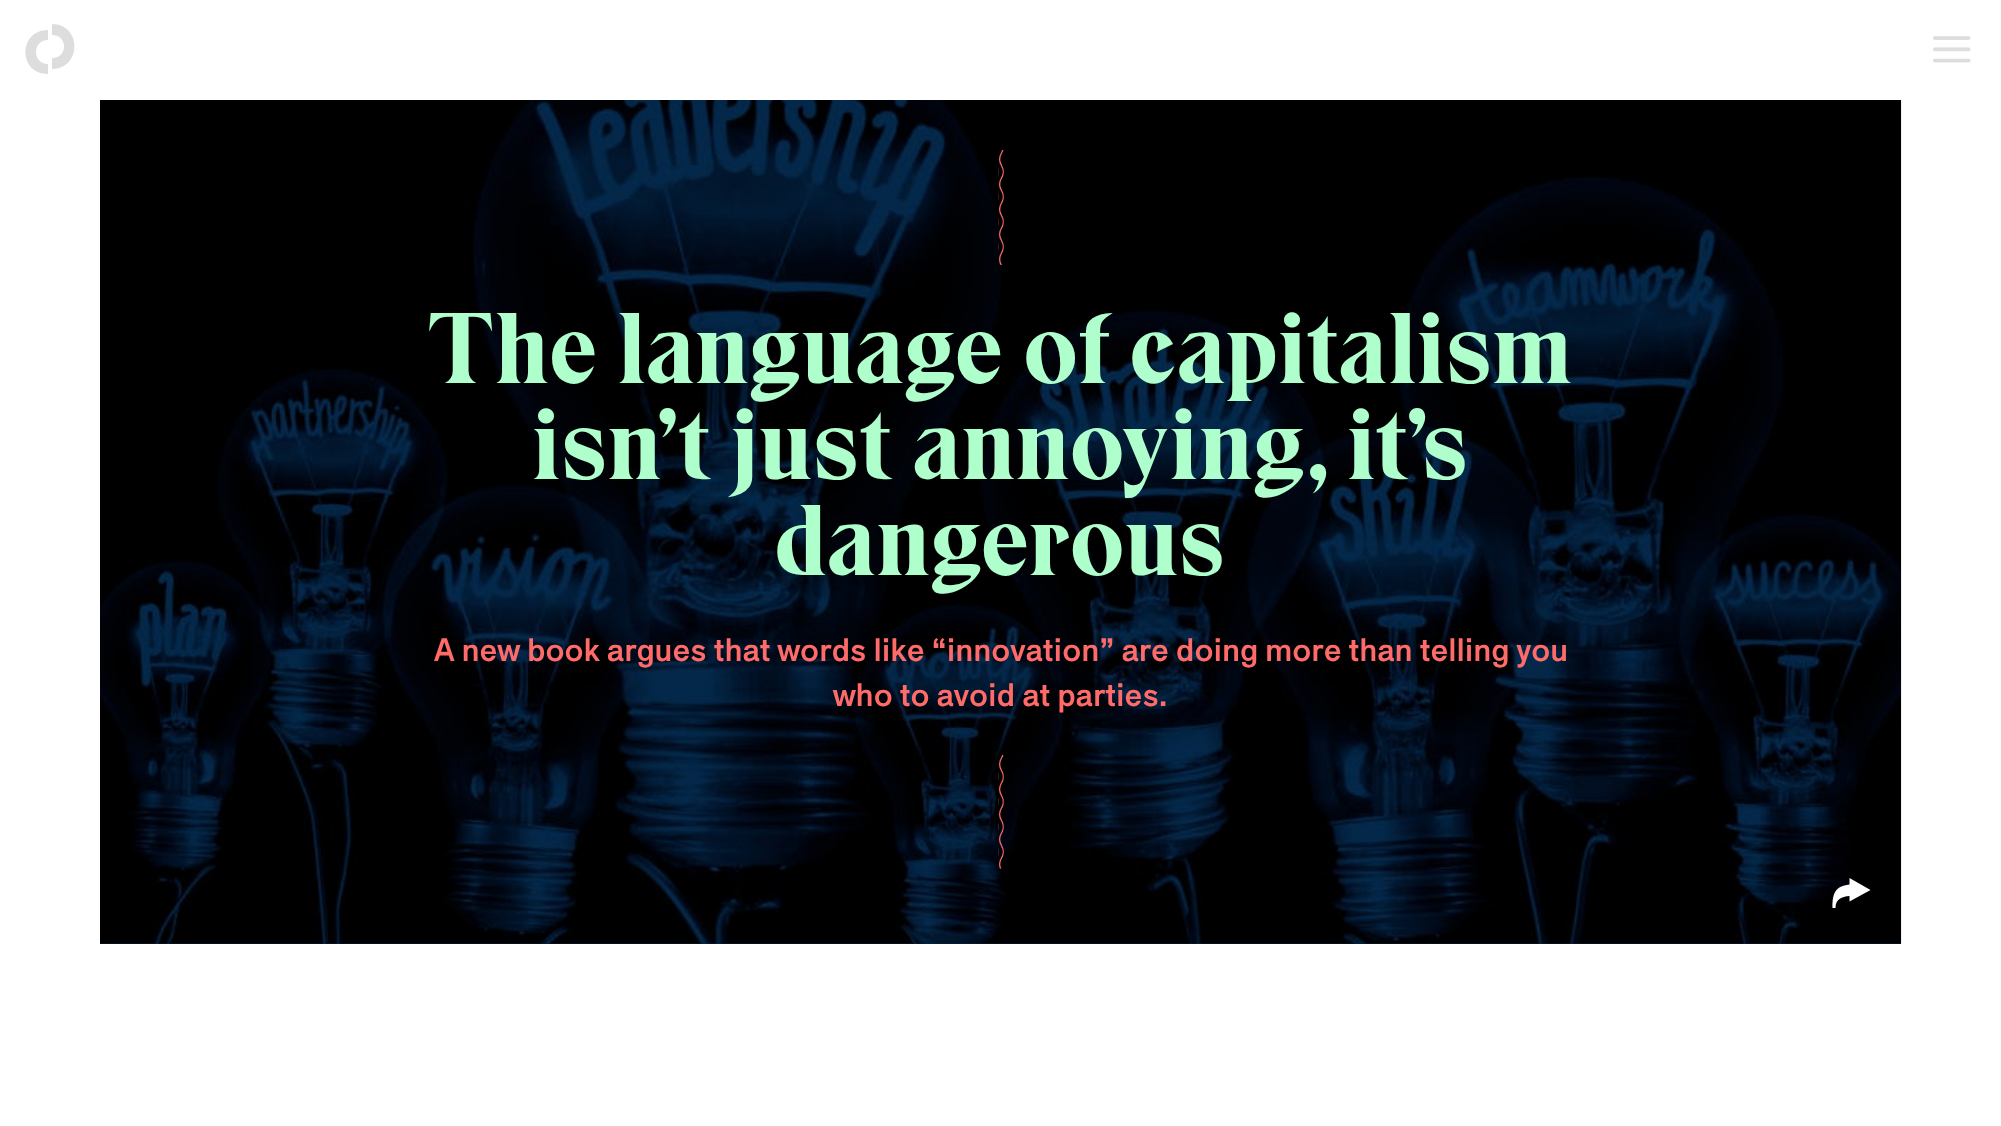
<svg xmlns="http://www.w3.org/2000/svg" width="2001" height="1126">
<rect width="100%" height="100%" fill="#fff"/>
<path d="M52 69v-11c16 0 16-23 0-23v-11c30 0 30 45 0 45zm-4 5c-30 0-30-44 0-44v10c-16 0-16 24 0 24z" fill="#ddd"/>
<image x="1933" y="36" width="38" height="27" href="media/1.png"/>
<rect x="100" y="943" width="1801" height="1" fill="#04284a"/>
<image x="100" y="100" width="1802" height="844" href="media/2.png"/>
<image x="998" y="150" width="6" height="115" href="media/3.png"/>
<text x="428" y="383" style="font-family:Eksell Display;font-size:100px;font-weight:500;letter-spacing:2.5px;fill:#afffcc">The language of capitalism</text>
<text x="533" y="479" style="font-family:Eksell Display;font-size:100px;font-weight:500;letter-spacing:2.5px;fill:#afffcc">isn’t just annoying, it’s</text>
<text x="775" y="575" style="font-family:Eksell Display;font-size:100px;font-weight:500;letter-spacing:2.5px;fill:#afffcc">dangerous</text>
<text x="434" y="661" style="font-family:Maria;font-size:32.5px;fill:#ff6b68">A new book argues that words like “innovation” are doing more than telling you</text>
<text x="833" y="706" style="font-family:Maria;font-size:32.5px;fill:#ff6b68">who to avoid at parties.</text>
<image x="998" y="755" width="6" height="114" href="media/4.png"/>
<path d="M1849.5 901.5l21-11.5l-21-12v6.5c-15.5 2-17 10-17 23.5h3c0-8.5 6-11.5 14-12z" fill="#fff"/>
</svg>
